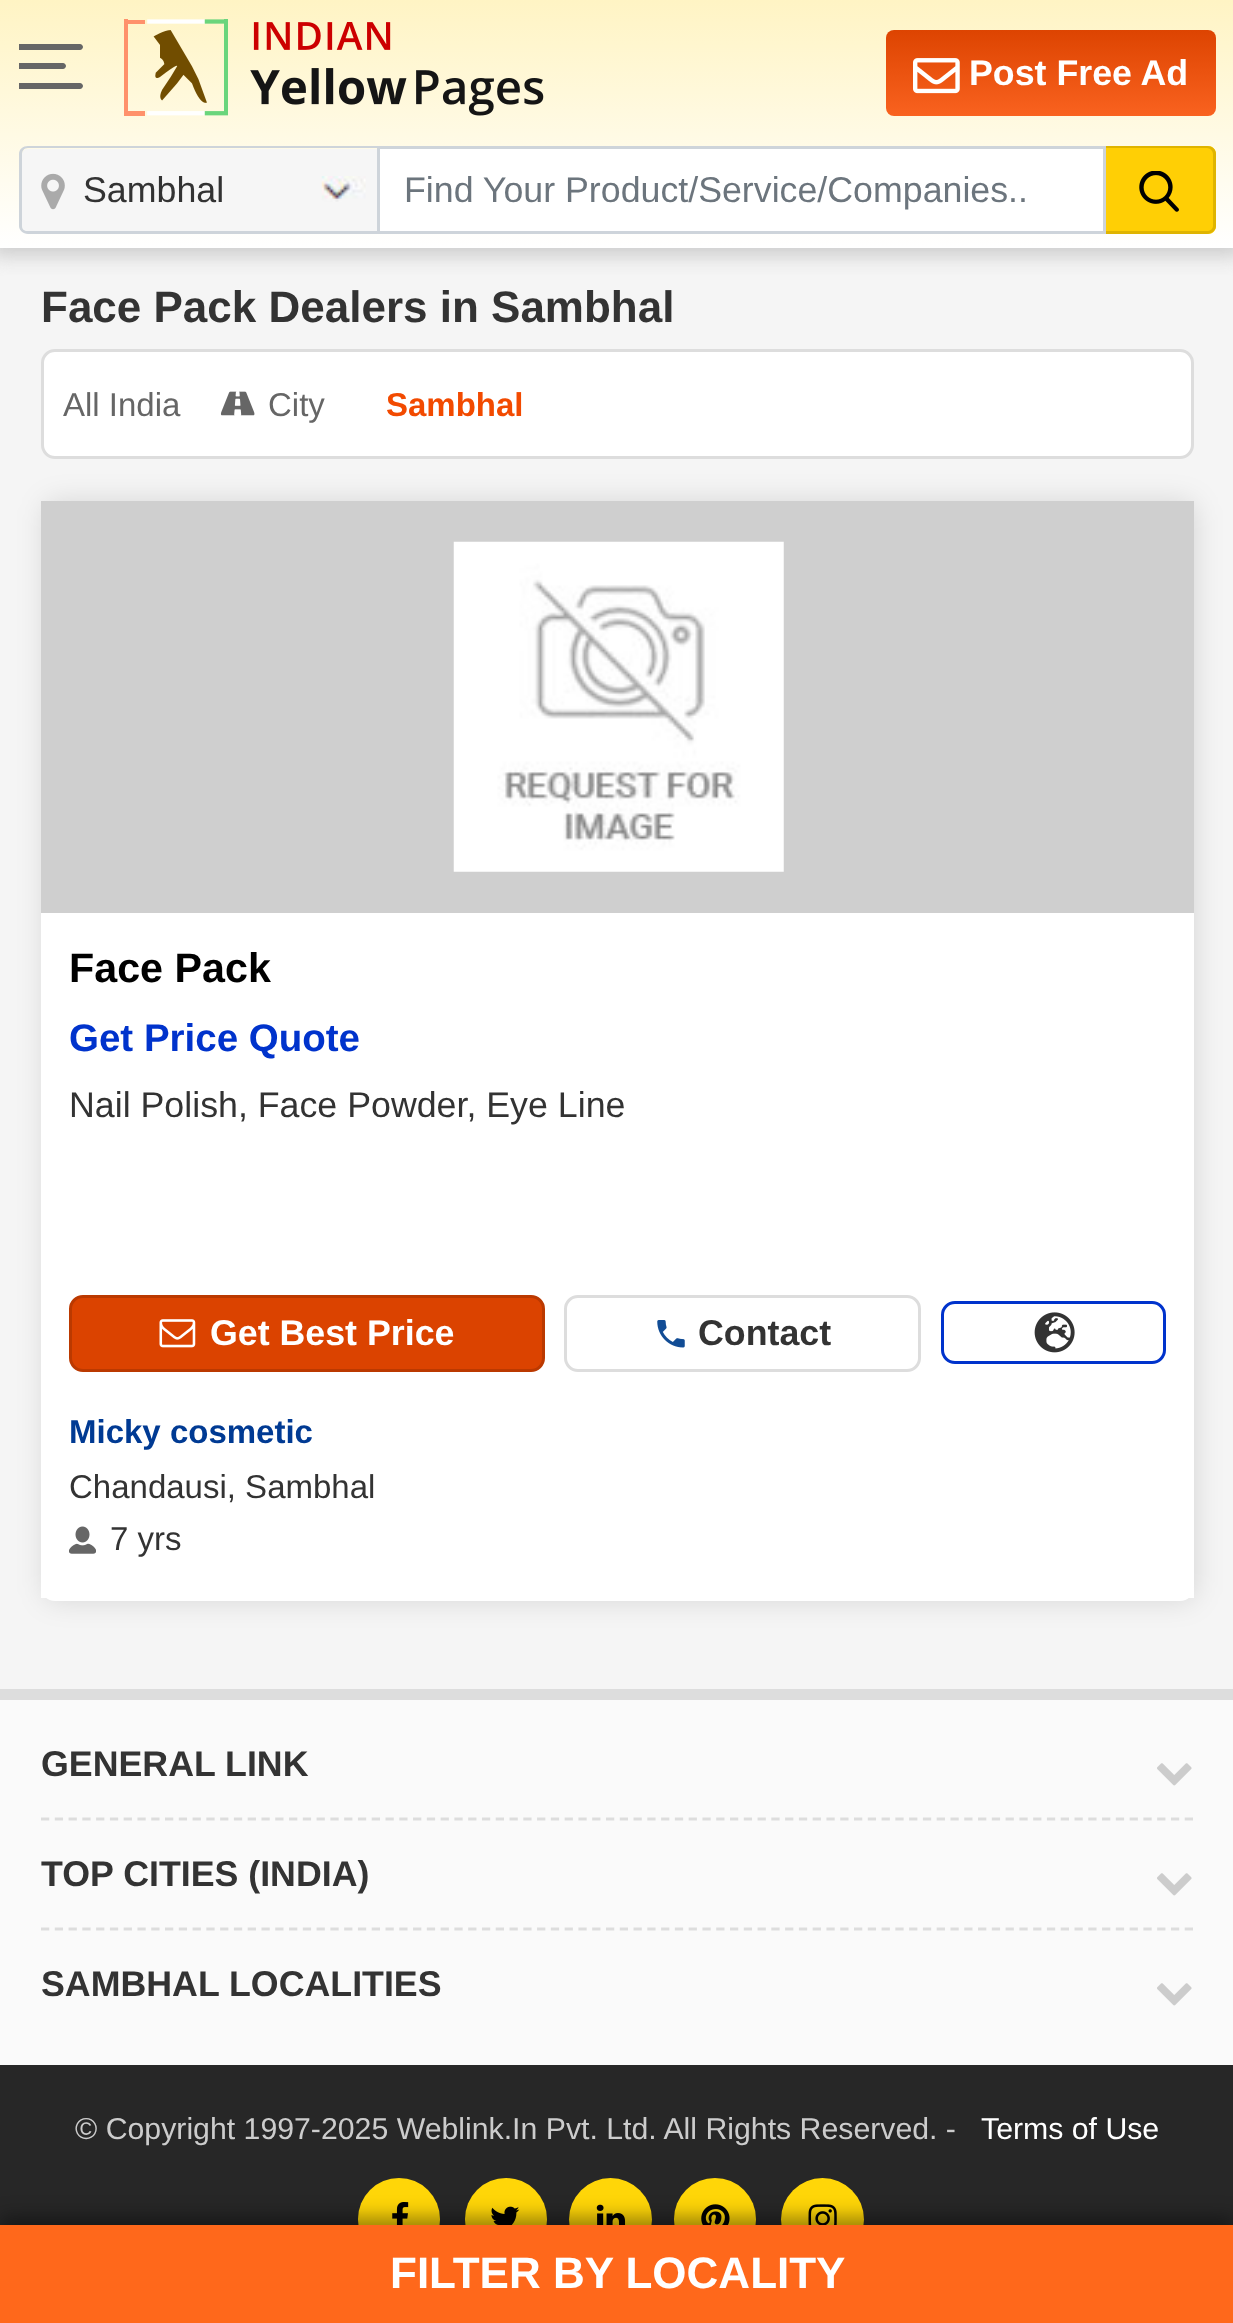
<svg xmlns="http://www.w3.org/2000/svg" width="1233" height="2323">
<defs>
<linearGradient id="g1" gradientUnits="userSpaceOnUse" x1="617" y1="0" x2="617" y2="248"><stop offset="0" stop-color="#fff4c4"/><stop offset="1" stop-color="#fff"/></linearGradient>
<linearGradient id="g2" gradientUnits="userSpaceOnUse" x1="1051" y1="30" x2="1051" y2="116"><stop offset="0" stop-color="#dd4401"/><stop offset="1" stop-color="#f9621f"/></linearGradient>
</defs>
<rect width="100%" height="100%" fill="#f5f5f5"/>
<rect x="-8" y="-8" width="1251" height="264" fill="#ccc" filter="blur(9.5px)"/>
<rect width="1233" height="248" fill="url(#g1)"/>
<path d="M19 44h61c1.5 0 3 1.5 3 3c0 1.5-1.5 3-3 3h-61z" fill="#666"/>
<path d="M19 63h44c1.5 0 3 1.5 3 3c0 1.5-1.5 3-3 3h-44z" fill="#666"/>
<path d="M19 83h61c1.5 0 3 1.5 3 3c0 1.5-1.5 3-3 3h-61z" fill="#666"/>
<image x="124" y="19" width="104" height="97" href="media/1.png"/>
<image x="250" y="22" width="294" height="94" href="media/2.png"/>
<rect x="886" y="30" width="330" height="86" rx="8" fill="url(#g2)"/>
<image x="913" y="58" width="47" height="36" href="media/3.png"/>
<text x="969" y="85" style="font-family:Liberation Sans;font-size:35.75px;font-weight:bold;fill:#fff">Post Free Ad</text>
<path d="M28 149h349v82h-349c-3.5 0-6-2.5-6-6v-70c0-3.5 2.5-6 6-6z" fill="#f6f6f6"/>
<image x="321" y="176" width="45" height="26" href="media/5.png"/>
<path d="M28 146h349v88h-349c-5 0-9-4-9-8v-72c0-5 4-8 9-8zm0 2h349v83h-349c-4 0-6-2-6-5v-72c0-3 2-6 6-6z" fill="#ced4da" fill-rule="evenodd"/>
<image x="41" y="173" width="24" height="37" href="media/4.png"/>
<text x="83" y="202" style="font-family:Liberation Sans;font-size:35.75px;fill:#333">Sambhal</text>
<rect x="378.5" y="147.5" width="726" height="85" fill="#fff" stroke="#ced4da" stroke-width="3"/>
<text x="404" y="202" style="font-family:Liberation Sans;font-size:35.75px;fill:#6c757d">Find Your Product/Service/Companies..</text>
<path d="M1106 146h102c4.5 0 8 3.5 8 8v72c0 4.5-3.5 8-8 8h-102z" fill="#ffcf05"/>
<path d="M1106 146h101c5 0 9 3 9 8v72c0 4-4 8-9 8h-101zm0 2h101c3 0 6 3 6 6v72c0 3-3 5-6 5h-101z" fill="#dfb400" fill-rule="evenodd"/>
<image x="1139" y="171" width="40" height="41" href="media/6.png"/>
<text x="41" y="322" style="font-family:Liberation Sans;font-size:44px;font-weight:bold;fill:#333">Face Pack Dealers in Sambhal</text>
<rect x="42.5" y="350.5" width="1150" height="107" rx="12.5" fill="#fff" stroke="#ddd" stroke-width="3"/>
<text x="63" y="416" style="font-family:Liberation Sans;font-size:33px;fill:#666">All India</text>
<image x="220" y="391" width="35" height="25" href="media/7.png"/>
<text x="268" y="416" style="font-family:Liberation Sans;font-size:33px;fill:#666">City</text>
<text x="386" y="416" style="font-family:Liberation Sans;font-size:33px;font-weight:bold;fill:#f24a00">Sambhal</text>
<rect x="44" y="501" width="1152" height="1100" rx="14" fill="#0000001f" filter="blur(14px)"/>
<rect x="41" y="501" width="1153" height="1100" rx="14" fill="#fff"/>
<rect x="41" y="501" width="1153" height="412" fill="#cfcfcf"/>
<image x="453" y="541" width="331" height="331" href="media/8.png"/>
<text x="69" y="982" style="font-family:Liberation Sans;font-size:41.25px;font-weight:bold;fill:#000">Face Pack</text>
<text x="69" y="1051" style="font-family:Liberation Sans;font-size:38.5px;font-weight:bold;fill:#03c">Get Price Quote</text>
<text x="69" y="1117" style="font-family:Liberation Sans;font-size:35.75px;fill:#333">Nail Polish, Face Powder, Eye Line</text>
<rect x="70.5" y="1296.5" width="473" height="74" rx="12.5" fill="#db4300" stroke="#bb3900" stroke-width="3"/>
<image x="159" y="1319" width="37" height="29" href="media/9.png"/>
<text x="210" y="1345" style="font-family:Liberation Sans;font-size:35.75px;font-weight:bold;fill:#fff">Get Best Price</text>
<rect x="565.5" y="1296.5" width="354" height="74" rx="12.5" fill="none" stroke="#ddd" stroke-width="3"/>
<image x="657" y="1320" width="28" height="28" href="media/10.png"/>
<text x="698" y="1345" style="font-family:Liberation Sans;font-size:35.75px;font-weight:bold;fill:#333">Contact</text>
<rect x="942.5" y="1302.5" width="222" height="60" rx="12.5" fill="none" stroke="#03c" stroke-width="3"/>
<image x="1034" y="1312" width="41" height="41" href="media/11.png"/>
<rect x="41" y="1588" width="1153" height="10" fill="#fff"/>
<text x="69" y="1443" style="font-family:Liberation Sans;font-size:33px;font-weight:bold;fill:#003a93">Micky cosmetic</text>
<text x="69" y="1498" style="font-family:Liberation Sans;font-size:33px;fill:#333">Chandausi, Sambhal</text>
<image x="69" y="1526" width="27" height="28" href="media/12.png"/>
<text x="110" y="1550" style="font-family:Liberation Sans;font-size:33px;fill:#333">7 yrs</text>
<rect y="1700" width="1233" height="365" fill="#fafafa"/>
<rect y="1689" width="1233" height="11" fill="#ddd"/>
<path d="M41 1819h1152.5" fill="none" stroke="#ddd" stroke-width="2.8" stroke-dasharray="8.25 5.53"/>
<text x="41" y="1776" style="font-family:Liberation Sans;font-size:35.75px;font-weight:bold;fill:#333">GENERAL LINK</text>
<image x="1157" y="1763" width="35" height="23" href="media/13.png"/>
<path d="M41 1929h1152.5" fill="none" stroke="#ddd" stroke-width="2.8" stroke-dasharray="8.25 5.53"/>
<text x="41" y="1886" style="font-family:Liberation Sans;font-size:35.75px;font-weight:bold;fill:#333">TOP CITIES (INDIA)</text>
<image x="1157" y="1873" width="35" height="23" href="media/13.png"/>
<text x="41" y="1996" style="font-family:Liberation Sans;font-size:35.75px;font-weight:bold;fill:#333">SAMBHAL LOCALITIES</text>
<image x="1157" y="1983" width="35" height="23" href="media/13.png"/>
<rect y="2065" width="1233" height="160" fill="#272727"/>
<text x="75" y="2139" style="font-family:Liberation Sans;font-size:30.25px;fill:#ccc">© Copyright 1997-2025 Weblink.In Pvt. Ltd. All Rights Reserved. -</text>
<text x="981" y="2139" style="font-family:Liberation Sans;font-size:30.25px;fill:#fff">Terms of Use</text>
<rect x="358" y="2178" width="82" height="83" rx="41" fill="#ffd608"/>
<image x="392" y="2202" width="17" height="23" href="media/14.png"/>
<rect x="465" y="2178" width="82" height="83" rx="41" fill="#ffd608"/>
<image x="491" y="2206" width="29" height="19" href="media/15.png"/>
<circle cx="610.5" cy="2219.5" r="41.5" fill="#ffd608"/>
<image x="596" y="2204" width="30" height="21" href="media/16.png"/>
<rect x="674" y="2178" width="82" height="83" rx="41" fill="#ffd608"/>
<image x="701" y="2204" width="29" height="21" href="media/17.png"/>
<circle cx="822.5" cy="2219.5" r="41.5" fill="#ffd608"/>
<image x="808" y="2204" width="29" height="21" href="media/18.png"/>
<rect y="2217" width="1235" height="99" fill="#00000066" filter="blur(9.5px)"/>
<rect y="2225" width="1233" height="98" fill="#ff681b"/>
<text x="390" y="2288" style="font-family:Liberation Sans;font-size:44px;font-weight:bold;fill:#fff">FILTER BY LOCALITY</text>
</svg>
